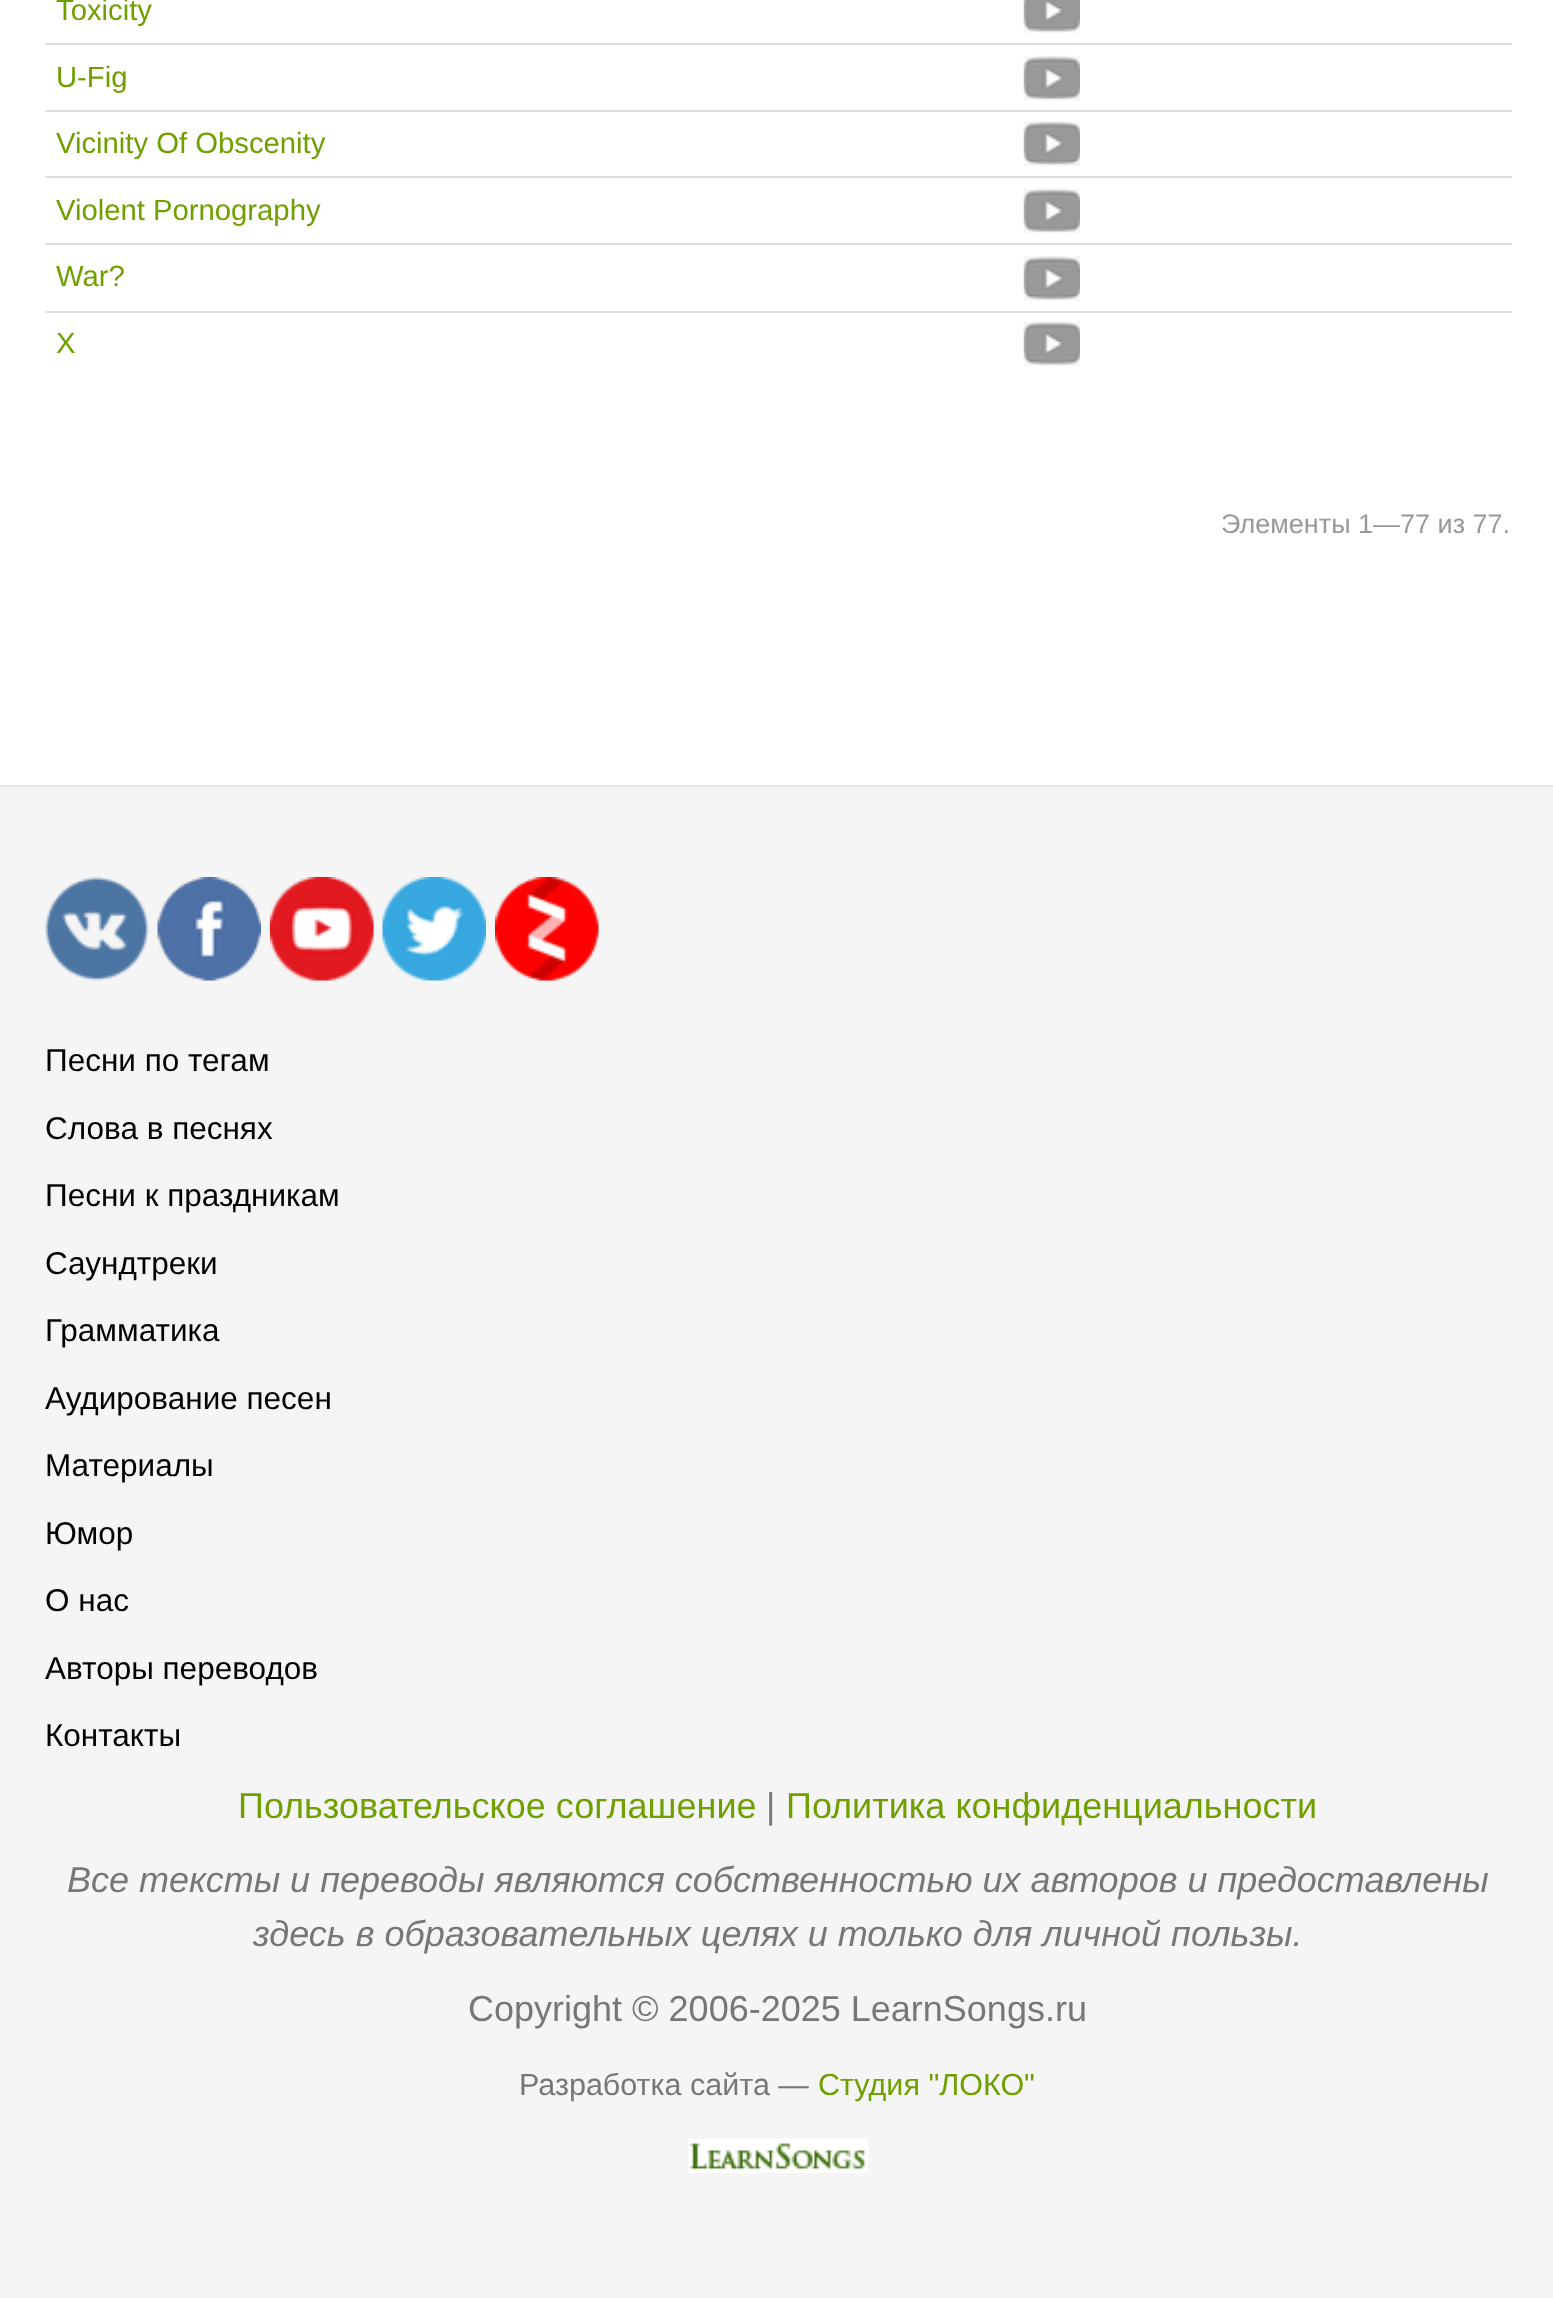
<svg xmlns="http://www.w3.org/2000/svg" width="1553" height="2298">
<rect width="100%" height="100%" fill="#fff"/>
<text x="56" y="20" style="font-family:Liberation Sans;font-size:29.25px;fill:#70a000">Toxicity</text>
<image x="1023" y="0" width="57" height="33" href="media/1.png"/>
<rect x="45" y="43" width="1467" height="2" fill="#ddd"/>
<text x="56" y="87" style="font-family:Liberation Sans;font-size:29.25px;fill:#70a000">U-Fig</text>
<image x="1023" y="55" width="57" height="46" href="media/2.png"/>
<rect x="45" y="110" width="1467" height="2" fill="#ddd"/>
<text x="56" y="153" style="font-family:Liberation Sans;font-size:29.25px;fill:#70a000">Vicinity Of Obscenity</text>
<image x="1023" y="121" width="57" height="45" href="media/3.png"/>
<rect x="45" y="176" width="1467" height="2" fill="#ddd"/>
<text x="56" y="220" style="font-family:Liberation Sans;font-size:29.25px;fill:#70a000">Violent Pornography</text>
<image x="1023" y="188" width="57" height="46" href="media/4.png"/>
<rect x="45" y="243" width="1467" height="2" fill="#ddd"/>
<text x="56" y="286" style="font-family:Liberation Sans;font-size:29.25px;fill:#70a000">War?</text>
<image x="1023" y="256" width="57" height="45" href="media/3.png"/>
<rect x="45" y="311" width="1467" height="2" fill="#ddd"/>
<text x="56" y="353" style="font-family:Liberation Sans;font-size:29.25px;fill:#70a000">X</text>
<image x="1023" y="321" width="57" height="45" href="media/5.png"/>
<text x="1221" y="533" style="font-family:Liberation Sans;font-size:27px;fill:#999">Элементы 1—77 из 77.</text>
<rect y="787" width="1553" height="1511" fill="#f5f5f5"/>
<rect y="785" width="1553" height="2" fill="#e5e5e5"/>
<image x="45" y="877" width="104" height="104" href="media/6.png"/>
<image x="157" y="877" width="104" height="104" href="media/7.png"/>
<image x="270" y="877" width="104" height="104" href="media/8.png"/>
<image x="382" y="877" width="104" height="104" href="media/9.png"/>
<image x="495" y="877" width="104" height="104" href="media/10.png"/>
<text x="45" y="1071" style="font-family:Liberation Sans;font-size:31.5px;fill:#000">Песни по тегам</text>
<text x="45" y="1139" style="font-family:Liberation Sans;font-size:31.5px;fill:#000">Слова в песнях</text>
<text x="45" y="1206" style="font-family:Liberation Sans;font-size:31.5px;fill:#000">Песни к праздникам</text>
<text x="45" y="1274" style="font-family:Liberation Sans;font-size:31.5px;fill:#000">Саундтреки</text>
<text x="45" y="1341" style="font-family:Liberation Sans;font-size:31.5px;fill:#000">Грамматика</text>
<text x="45" y="1409" style="font-family:Liberation Sans;font-size:31.5px;fill:#000">Аудирование песен</text>
<text x="45" y="1476" style="font-family:Liberation Sans;font-size:31.5px;fill:#000">Материалы</text>
<text x="45" y="1544" style="font-family:Liberation Sans;font-size:31.5px;fill:#000">Юмор</text>
<text x="45" y="1611" style="font-family:Liberation Sans;font-size:31.5px;fill:#000">О нас</text>
<text x="45" y="1679" style="font-family:Liberation Sans;font-size:31.5px;fill:#000">Авторы переводов</text>
<text x="45" y="1746" style="font-family:Liberation Sans;font-size:31.5px;fill:#000">Контакты</text>
<text x="238" y="1818" style="font-family:Liberation Sans;font-size:36px;fill:#70a000">Пользовательское соглашение</text>
<text x="766" y="1818" style="font-family:Liberation Sans;font-size:36px;fill:#777">|</text>
<text x="786" y="1818" style="font-family:Liberation Sans;font-size:36px;fill:#70a000">Политика конфиденциальности</text>
<text x="67" y="1892" style="font-family:Liberation Sans;font-size:36px;font-style:italic;fill:#777">Все тексты и переводы являются собственностью их авторов и предоставлены</text>
<text x="253" y="1946" style="font-family:Liberation Sans;font-size:36px;font-style:italic;fill:#777">здесь в образовательных целях и только для личной пользы.</text>
<text x="468" y="2021" style="font-family:Liberation Sans;font-size:36px;fill:#777">Copyright © 2006-2025 LearnSongs.ru</text>
<text x="519" y="2095" style="font-family:Liberation Sans;font-size:30.5px;fill:#777">Разработка сайта —</text>
<text x="818" y="2095" style="font-family:Liberation Sans;font-size:30.5px;fill:#70a000">Студия "ЛОКО"</text>
<image x="688" y="2139" width="181" height="34" href="media/11.png"/>
</svg>
